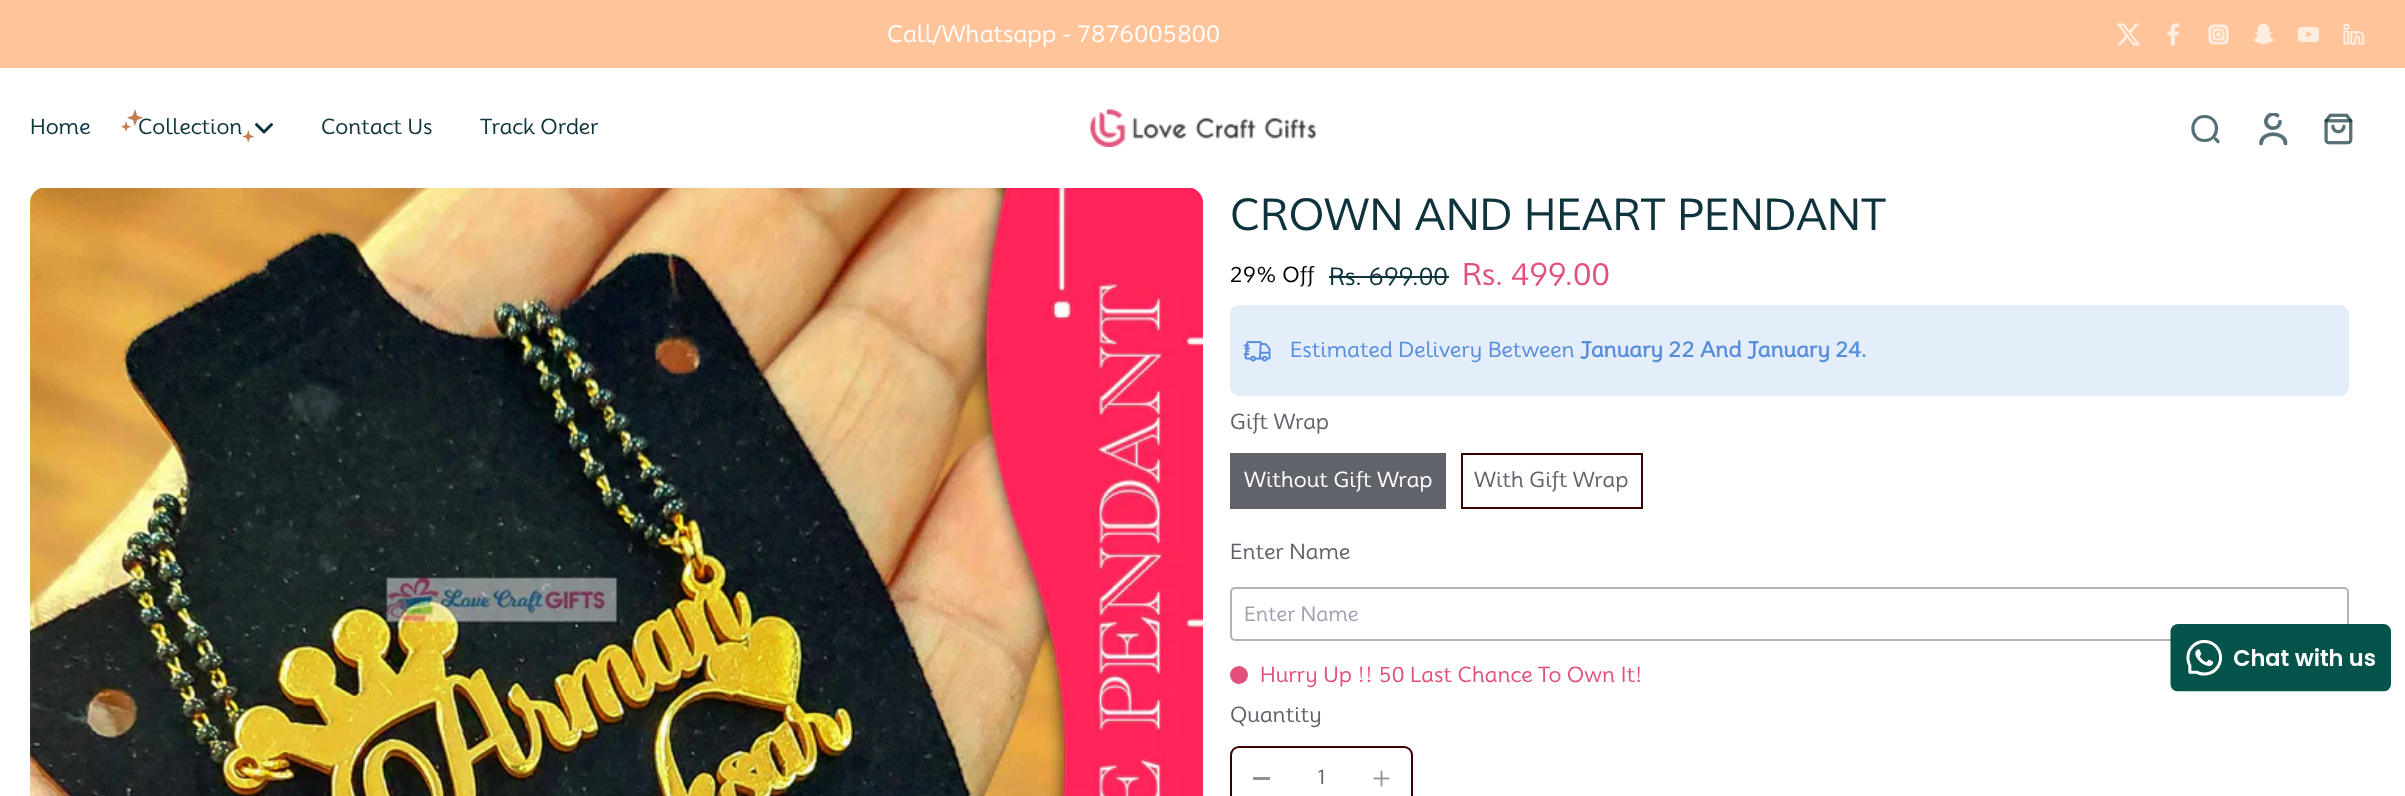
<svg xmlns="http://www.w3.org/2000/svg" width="2405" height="796">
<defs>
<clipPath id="clip1"><rect x="2256" y="113" width="33" height="33"/></clipPath>
</defs>
<rect width="100%" height="100%" fill="#fff"/>
<rect width="2405" height="68" fill="#ffc49a"/>
<text x="887" y="42" style="font-family:Mooli;font-size:23.1px;fill:#fff">Call/Whatsapp - 7876005800</text>
<image x="2116" y="23" width="25" height="23" href="media/1.png"/>
<image x="2167" y="23" width="13" height="23" href="media/2.png"/>
<image x="2208" y="24" width="21" height="21" href="media/3.png"/>
<image x="2252" y="24" width="23" height="21" href="media/4.png"/>
<image x="2297" y="26" width="23" height="16" href="media/5.png"/>
<image x="2343" y="23" width="22" height="22" href="media/6.png"/>
<text x="30" y="134" style="font-family:Mooli;font-size:21px;fill:#0e333c">Home</text>
<text x="138" y="134" style="font-family:Mooli;font-size:21px;fill:#0e333c">Collection</text>
<image x="127" y="109" width="17" height="17" href="media/8.png"/>
<image x="121" y="121" width="11" height="11" href="media/7.png"/>
<image x="242" y="130" width="13" height="13" href="media/9.png"/>
<path d="M256.5 124.5l7.5 7.5l7.5-7.5" fill="none" stroke="#0e333c" stroke-width="3" stroke-linecap="round" stroke-linejoin="round"/>
<text x="321" y="134" style="font-family:Mooli;font-size:21px;fill:#0e333c">Contact Us</text>
<text x="480" y="134" style="font-family:Mooli;font-size:21px;fill:#0e333c">Track Order</text>
<image x="1090" y="109" width="226" height="38" href="media/10.png"/>
<path d="M2204.5 140.5c16 0 16-24 0-24c-15.5 0-15.5 24 0 24zm13.5 1l-2.5-2.5" fill="none" stroke="#567077" stroke-width="3.2" stroke-linecap="round" stroke-linejoin="round"/>
<g clip-path="url(#clip1)">
<path d="M2277.5 115.5c-7.5-5.5-16.5 6-8.5 11.5c1.5 1 3.5 1.5 5.5 1c3.5-.5 5.5-3.5 5.5-6.5" fill="none" stroke="#567077" stroke-width="3.7" stroke-linecap="round" stroke-linejoin="round"/>
</g>
<path d="M2285.5 143.5c0-12.5-24.5-12.5-24.5 0" fill="none" stroke="#567077" stroke-width="3.7" stroke-linecap="round" stroke-linejoin="round"/>
<image x="2324" y="113" width="29" height="32" href="media/11.png"/>
<image x="30" y="188" width="1173" height="608" href="media/12.png"/>
<text x="1230" y="230" style="font-family:Mooli;font-size:43.25px;fill:#0e333c">CROWN AND HEART PENDANT</text>
<text x="1230" y="282" style="font-family:Mooli;font-size:21px;fill:#000">29% Off</text>
<text x="1329" y="285" style="font-family:Mooli;font-size:24px;fill:#0e333c">Rs. 699.00</text>
<rect x="1329" y="276" width="120" height="2" fill="#0e333c"/>
<text x="1462" y="285" style="font-family:Mooli;font-size:30.25px;fill:#e1517b">Rs. 499.00</text>
<rect x="1230" y="305" width="1119" height="91" rx="9" fill="#e4edfa"/>
<image x="1243" y="341" width="28" height="21" href="media/13.png"/>
<text x="1290" y="357" style="font-family:Mooli;font-size:21px;fill:#568ddd">Estimated Delivery Between</text>
<text x="1580" y="357" style="font-family:Mooli;font-size:21px;font-weight:bold;fill:#568ddd">January 22 And January 24.</text>
<text x="1230" y="429" style="font-family:Mooli;font-size:21px;fill:#61636b">Gift Wrap</text>
<rect x="1230" y="453" width="216" height="56" fill="#61636b"/>
<text x="1244" y="487" style="font-family:Mooli;font-size:21px;fill:#fff">Without Gift Wrap</text>
<rect x="1462" y="454" width="180" height="54" fill="none" stroke="#3b0000" stroke-width="2"/>
<text x="1474" y="487" style="font-family:Mooli;font-size:21px;fill:#61636b">With Gift Wrap</text>
<text x="1230" y="559" style="font-family:Mooli;font-size:21px;fill:#61636b">Enter Name</text>
<rect x="1231" y="588" width="1117" height="52" rx="4" fill="none" stroke="#b3b3b3" stroke-width="2"/>
<text x="1244" y="621" style="font-family:Mooli;font-size:20px;fill:#9ca3af">Enter Name</text>
<circle cx="1239" cy="675" r="9" fill="#e1517b"/>
<text x="1260" y="682" style="font-family:Mooli;font-size:21px;fill:#e1517b">Hurry Up !! 50 Last Chance To Own It!</text>
<text x="1230" y="722" style="font-family:Mooli;font-size:21px;fill:#61636b">Quantity</text>
<rect x="1231" y="747" width="181" height="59" rx="8" fill="none" stroke="#3b0000" stroke-width="2"/>
<rect x="1253" y="777" width="17" height="3" fill="#909297"/>
<text x="1317" y="784" style="font-family:Mooli;font-size:20px;fill:#61636b">1</text>
<image x="1373" y="770" width="17" height="17" href="media/14.png"/>
<image x="2170" y="624" width="221" height="68" href="media/15.png"/>
</svg>
